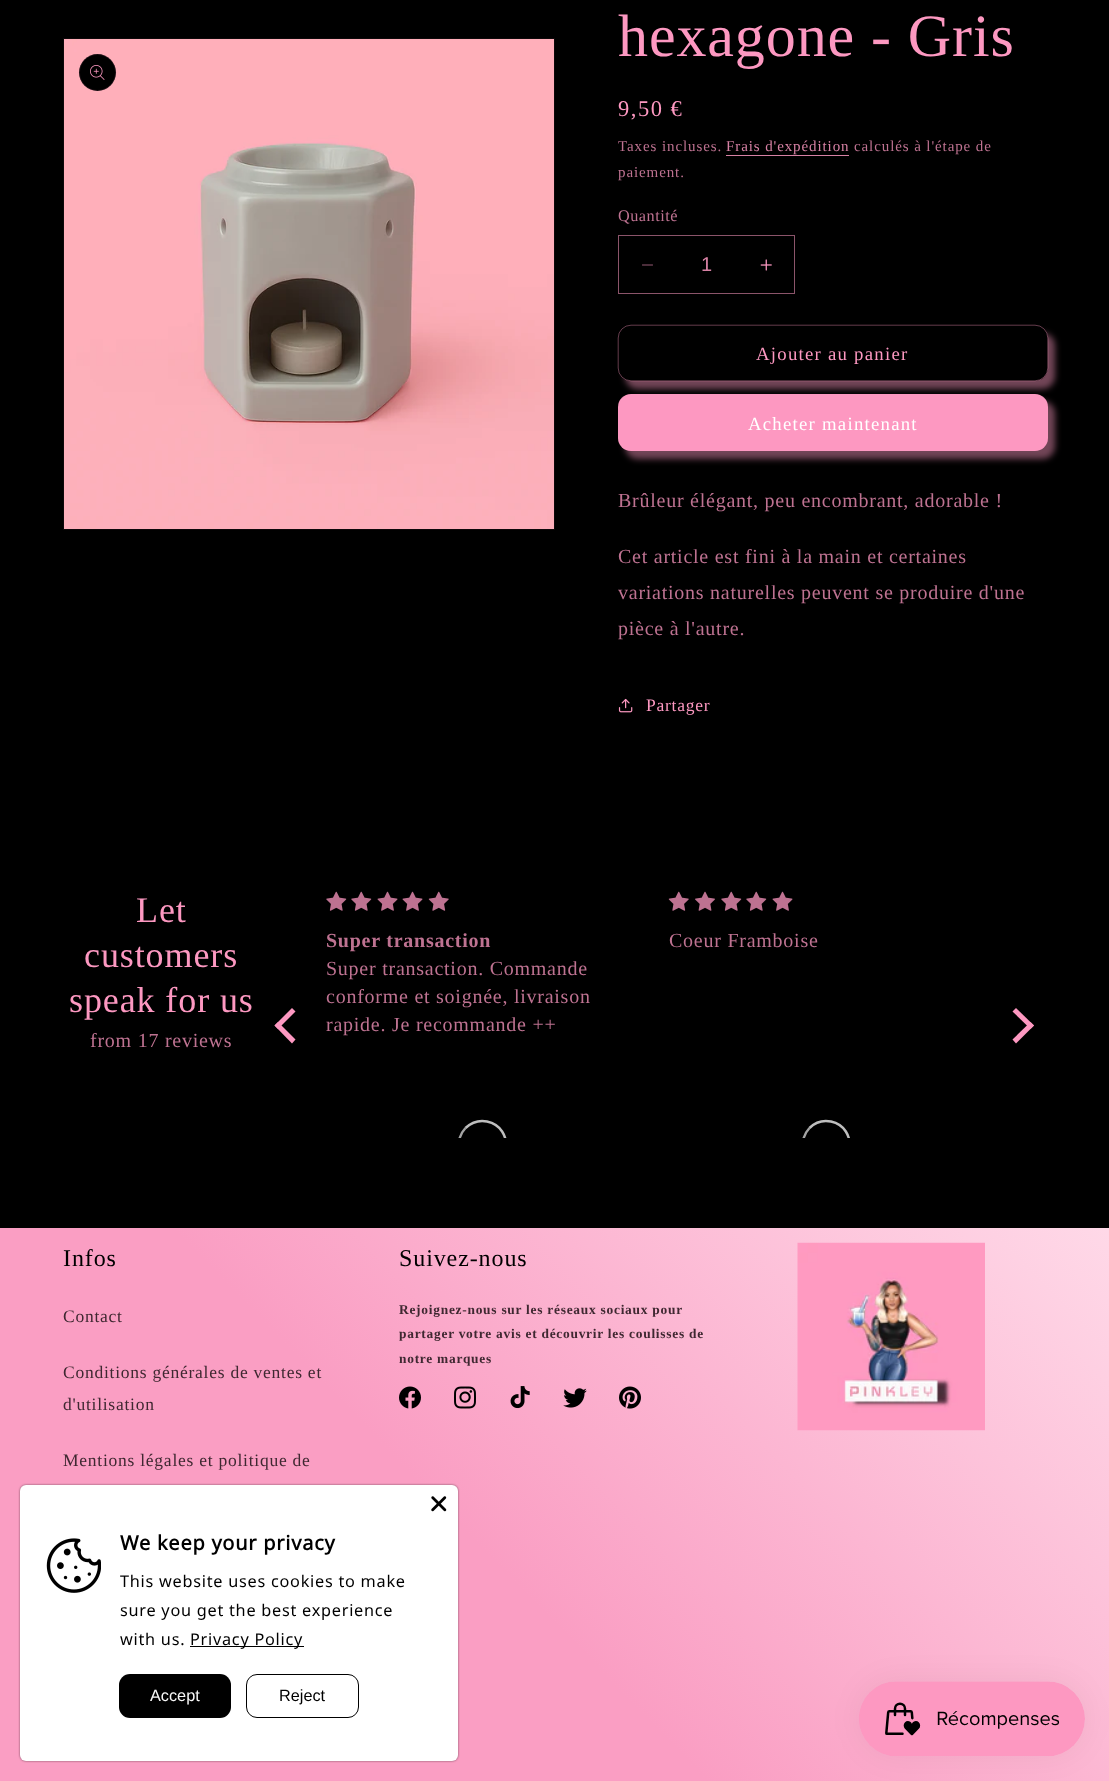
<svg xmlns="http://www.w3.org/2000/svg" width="1109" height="1781">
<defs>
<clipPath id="clip1"><rect x="311" y="888" width="343" height="250"/></clipPath>
<clipPath id="clip2"><rect x="654" y="888" width="344" height="250"/></clipPath>
<linearGradient id="g1" gradientUnits="userSpaceOnUse" x1="-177" y1="1598" x2="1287" y2="184"><stop offset="0.25" stop-color="#fa9ec3"/><stop offset="0.6" stop-color="#ffdcea"/><stop offset="0.81" stop-color="#faecef"/></linearGradient>
</defs>
<rect width="100%" height="100%" fill="#000"/>
<rect x="63.5" y="38.5" width="491" height="491" fill="none" stroke="#0d080a"/>
<image x="64" y="39" width="490" height="490" href="media/1.png"/>
<circle cx="97.5" cy="72.5" r="18.5" fill="#000"/>
<circle cx="97.5" cy="72.5" r="18" fill="none" stroke="#fd98c11a"/>
<image x="90" y="65" width="15" height="15" href="media/2.png"/>
<text x="618" y="56" style="font-family:Liberation Serif;font-size:60px;letter-spacing:0.9px;fill:#fd98c1">hexagone - Gris</text>
<text x="618" y="116" style="font-family:Liberation Serif;font-size:22.5px;letter-spacing:1.5px;fill:#fd98c1">9,50 €</text>
<text x="618" y="151" style="font-family:Liberation Serif;font-size:15px;letter-spacing:0.9px;fill:#be7291">Taxes incluses.</text>
<text x="726" y="151" style="font-family:Liberation Serif;font-size:15px;letter-spacing:0.9px;fill:#d781a4">Frais d'expédition</text>
<rect x="726" y="155" width="123" height="1" fill="#d781a4"/>
<text x="854" y="151" style="font-family:Liberation Serif;font-size:15px;letter-spacing:0.9px;fill:#be7291">calculés à l'étape de</text>
<text x="618" y="177" style="font-family:Liberation Serif;font-size:15px;letter-spacing:0.9px;fill:#be7291">paiement.</text>
<text x="618" y="221" style="font-family:Liberation Serif;font-size:16.25px;letter-spacing:0.5px;fill:#be7291">Quantité</text>
<image x="642" y="264" width="11" height="2" href="media/3.png"/>
<image x="760" y="259" width="12" height="12" href="media/4.png"/>
<rect x="618.5" y="235.5" width="176" height="58" fill="none" stroke="#8b546a"/>
<text x="701" y="271" style="font-family:Liberation Sans;font-size:20px;fill:#d781a4">1</text>
<rect x="625" y="333" width="430" height="56" rx="13" fill="#fd98c173" filter="blur(3px)"/>
<rect x="618" y="325" width="430" height="56" rx="13" fill="#000"/>
<rect x="618.2" y="325.2" width="429.6" height="55.6" rx="12.8" fill="none" stroke="#fd98c1" stroke-width="0.4"/>
<text x="756" y="360" style="font-family:Liberation Serif;font-size:18.75px;letter-spacing:1.25px;fill:#fd98c1">Ajouter au panier</text>
<rect x="625" y="401" width="430" height="58" rx="13" fill="#fd98c173" filter="blur(3px)"/>
<rect x="618" y="394" width="430" height="57" rx="13" fill="#fd98c1"/>
<text x="748" y="430" style="font-family:Liberation Serif;font-size:18.75px;letter-spacing:1.25px;fill:#fff">Acheter maintenant</text>
<text x="618" y="507" style="font-family:Liberation Serif;font-size:20px;letter-spacing:0.75px;fill:#be7291">Brûleur élégant, peu encombrant, adorable !</text>
<text x="618" y="563" style="font-family:Liberation Serif;font-size:20px;letter-spacing:0.75px;fill:#be7291">Cet article est fini à la main et certaines</text>
<text x="618" y="599" style="font-family:Liberation Serif;font-size:20px;letter-spacing:0.75px;fill:#be7291">variations naturelles peuvent se produire d'une</text>
<text x="618" y="635" style="font-family:Liberation Serif;font-size:20px;letter-spacing:0.75px;fill:#be7291">pièce à l'autre.</text>
<image x="618" y="698" width="15" height="15" href="media/5.png"/>
<text x="646" y="711" style="font-family:Liberation Serif;font-size:17.5px;letter-spacing:0.75px;fill:#fd98c1">Partager</text>
<text x="136" y="922" style="font-family:Liberation Serif;font-size:36px;letter-spacing:0.9px;fill:#fd98c1">Let</text>
<text x="84" y="967" style="font-family:Liberation Serif;font-size:36px;letter-spacing:0.9px;fill:#fd98c1">customers</text>
<text x="69" y="1012" style="font-family:Liberation Serif;font-size:36px;letter-spacing:0.9px;fill:#fd98c1">speak for us</text>
<text x="90" y="1047" style="font-family:Liberation Serif;font-size:20px;letter-spacing:0.75px;fill:#be7291">from 17 reviews</text>
<image x="326" y="891" width="21" height="20" href="media/6.png"/>
<image x="351" y="891" width="21" height="20" href="media/6.png"/>
<image x="377" y="891" width="21" height="20" href="media/7.png"/>
<image x="402" y="891" width="21" height="20" href="media/7.png"/>
<image x="428" y="891" width="21" height="20" href="media/8.png"/>
<text x="326" y="947" style="font-family:Liberation Serif;font-size:20px;font-weight:bold;letter-spacing:0.75px;fill:#be7291">Super transaction</text>
<text x="326" y="975" style="font-family:Liberation Serif;font-size:20px;letter-spacing:0.75px;fill:#be7291">Super transaction. Commande</text>
<text x="326" y="1003" style="font-family:Liberation Serif;font-size:20px;letter-spacing:0.75px;fill:#be7291">conforme et soignée, livraison</text>
<text x="326" y="1031" style="font-family:Liberation Serif;font-size:20px;letter-spacing:0.75px;fill:#be7291">rapide. Je recommande ++</text>
<g clip-path="url(#clip1)">
<path d="M465.5 1128c6-5.5 14-8 21.5-6.5c28 6 24 47.5-4.5 47.5c-6.5 0-12.5-3-17-7" fill="none" stroke="#bebebe" stroke-width="2.5"/>
<path d="M465.5 1162c-9-9.5-9-24.5 0-34" fill="none" stroke="#a3a3a3" stroke-width="2.5"/>
</g>
<image x="668" y="891" width="21" height="20" href="media/8.png"/>
<image x="695" y="891" width="20" height="20" href="media/9.png"/>
<image x="721" y="891" width="21" height="20" href="media/6.png"/>
<image x="746" y="891" width="21" height="20" href="media/6.png"/>
<image x="772" y="891" width="21" height="20" href="media/7.png"/>
<text x="669" y="947" style="font-family:Liberation Serif;font-size:20px;letter-spacing:0.75px;fill:#be7291">Coeur Framboise</text>
<g clip-path="url(#clip2)">
<path d="M809.5 1128c5.5-5.5 13.5-8 21.5-6.5c27.5 6 23.5 47.5-5 47.5c-6 0-12-3-16.5-7" fill="none" stroke="#bebebe" stroke-width="2.5"/>
<path d="M809.5 1162c-9-9.5-9-24.5 0-34" fill="none" stroke="#a3a3a3" stroke-width="2.5"/>
</g>
<path d="M274.5 1025.5l17.5-17.5l3.5 3.5l-17.5 17.5z" fill="#fd98c1"/>
<path d="M274.5 1025.5l3.5-3.5l17.5 17.5l-3.5 4z" fill="#fd98c1"/>
<path d="M1012.5 1011.5l3.5-3.5l18 17.5l-3.5 3.5z" fill="#fd98c1"/>
<path d="M1012.5 1039.5l18-17.5l3.5 3.5l-18 18z" fill="#fd98c1"/>
<rect y="1228" width="1109" height="553" fill="url(#g1)"/>
<text x="63" y="1266" style="font-family:Liberation Serif;font-size:24px;letter-spacing:0.9px;fill:#000">Infos</text>
<text x="63" y="1322" style="font-family:Liberation Serif;font-size:17.5px;letter-spacing:0.75px;fill:#3f2831">Contact</text>
<text x="63" y="1378" style="font-family:Liberation Serif;font-size:17.5px;letter-spacing:0.75px;fill:#3f2831">Conditions générales de ventes et</text>
<text x="63" y="1410" style="font-family:Liberation Serif;font-size:17.5px;letter-spacing:0.75px;fill:#3f2831">d'utilisation</text>
<text x="63" y="1466" style="font-family:Liberation Serif;font-size:17.5px;letter-spacing:0.75px;fill:#3f2831">Mentions légales et politique de</text>
<text x="399" y="1266" style="font-family:Liberation Serif;font-size:24px;letter-spacing:0.9px;fill:#000">Suivez-nous</text>
<text x="399" y="1314" style="font-family:Liberation Serif;font-size:13.4px;font-weight:bold;letter-spacing:0.75px;fill:#3f2831">Rejoignez-nous sur les réseaux sociaux pour</text>
<text x="399" y="1338" style="font-family:Liberation Serif;font-size:13.4px;font-weight:bold;letter-spacing:0.75px;fill:#3f2831">partager votre avis et découvrir les coulisses de</text>
<text x="399" y="1363" style="font-family:Liberation Serif;font-size:13.4px;font-weight:bold;letter-spacing:0.75px;fill:#3f2831">notre marques</text>
<image x="399" y="1386" width="22" height="23" href="media/10.png"/>
<image x="454" y="1386" width="22" height="23" href="media/11.png"/>
<image x="510" y="1386" width="20" height="23" href="media/12.png"/>
<image x="563" y="1388" width="24" height="20" href="media/13.png"/>
<image x="619" y="1386" width="22" height="23" href="media/14.png"/>
<image x="797" y="1242" width="188" height="189" href="media/15.png"/>
<rect x="20" y="1485" width="438" height="276" rx="6" fill="#00000080" filter="blur(1px)"/>
<rect x="20" y="1485" width="438" height="276" rx="6" fill="#fff"/>
<image x="431" y="1496" width="16" height="16" href="media/16.png"/>
<image x="46" y="1538" width="55" height="55" href="media/17.png"/>
<text x="120" y="1550" style="font-family:Noto Sans;font-size:20px;font-weight:bold;letter-spacing:0.75px;fill:#000">We keep your privacy</text>
<text x="120" y="1587" style="font-family:Noto Sans;font-size:16.25px;letter-spacing:0.75px;fill:#000">This website uses cookies to make</text>
<text x="120" y="1616" style="font-family:Noto Sans;font-size:16.25px;letter-spacing:0.75px;fill:#000">sure you get the best experience</text>
<text x="120" y="1645" style="font-family:Noto Sans;font-size:16.25px;letter-spacing:0.75px;fill:#000">with us.</text>
<rect x="190" y="1646" width="114" height="1" fill="#000"/>
<text x="190" y="1645" style="font-family:Noto Sans;font-size:16.25px;letter-spacing:0.75px;fill:#000">Privacy Policy</text>
<rect x="119" y="1674" width="112" height="44" rx="11" fill="#000"/>
<text x="150" y="1701" style="font-family:Liberation Sans;font-size:16.25px;fill:#f8f8f8">Accept</text>
<rect x="246.5" y="1674.5" width="112" height="43" rx="10.5" fill="none" stroke="#000"/>
<text x="279" y="1701" style="font-family:Liberation Sans;font-size:16.25px;fill:#000">Reject</text>
<rect x="859" y="1681" width="226" height="75" rx="37.5" fill="#0000000d" filter="blur(15.5px)"/>
<image x="859" y="1681" width="226" height="75" href="media/18.png"/>
</svg>
